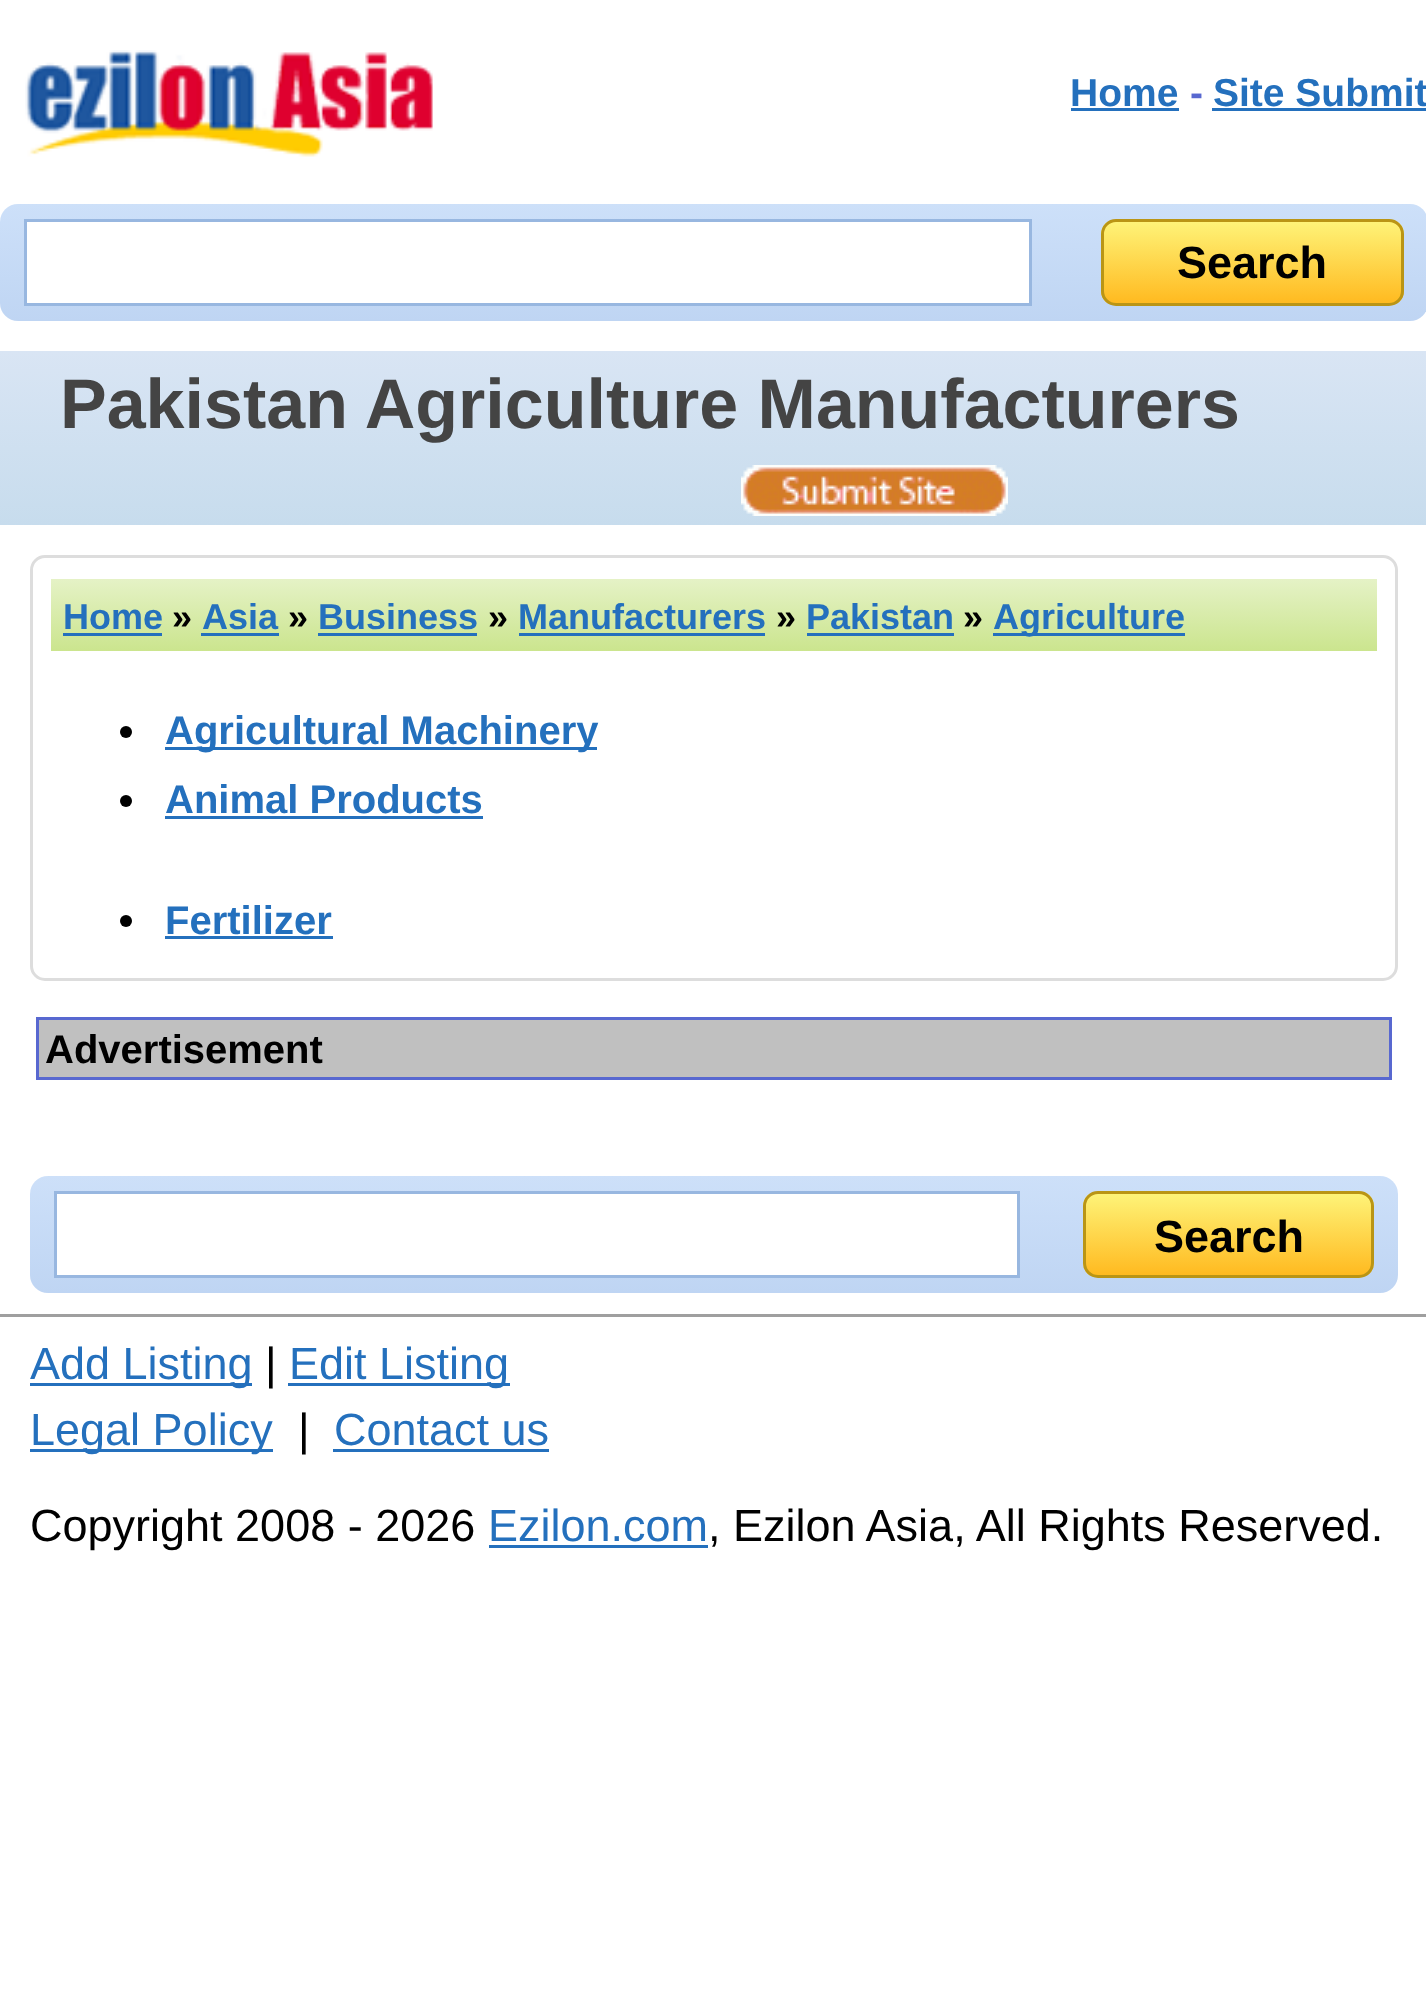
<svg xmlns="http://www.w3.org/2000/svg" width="1426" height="2012">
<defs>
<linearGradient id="g1" gradientUnits="userSpaceOnUse" x1="714" y1="204" x2="714" y2="321"><stop offset="0" stop-color="#cde0f9"/><stop offset="1" stop-color="#bfd5f3"/></linearGradient>
<clipPath id="clip1"><rect x="1101" y="219" width="303" height="87" rx="15"/></clipPath>
<linearGradient id="g2" gradientUnits="userSpaceOnUse" x1="1253" y1="222" x2="1253" y2="303"><stop offset="0" stop-color="#fef378"/><stop offset="1" stop-color="#ffba20"/></linearGradient>
<linearGradient id="g3" gradientUnits="userSpaceOnUse" x1="714" y1="351" x2="714" y2="525"><stop offset="0" stop-color="#d9e5f4"/><stop offset="1" stop-color="#c7dced"/></linearGradient>
<linearGradient id="g4" gradientUnits="userSpaceOnUse" x1="714" y1="579" x2="714" y2="651"><stop offset="0" stop-color="#e5f2c6"/><stop offset="1" stop-color="#cbe58e"/></linearGradient>
<linearGradient id="g5" gradientUnits="userSpaceOnUse" x1="714" y1="1176" x2="714" y2="1293"><stop offset="0" stop-color="#cde0f9"/><stop offset="1" stop-color="#bfd5f3"/></linearGradient>
<clipPath id="clip2"><rect x="1083" y="1191" width="291" height="87" rx="15"/></clipPath>
<linearGradient id="g6" gradientUnits="userSpaceOnUse" x1="1229" y1="1194" x2="1229" y2="1275"><stop offset="0" stop-color="#fef378"/><stop offset="1" stop-color="#ffba20"/></linearGradient>
</defs>
<rect width="100%" height="100%" fill="#fff"/>
<image x="25" y="50" width="408" height="107" href="media/1.png"/>
<text x="1070" y="106" style="font-family:Liberation Sans;font-size:39px;font-weight:bold;fill:#2470bd">Home</text>
<rect x="1071" y="108" width="108" height="3" fill="#2470bd"/>
<text x="1190" y="106" style="font-family:Liberation Sans;font-size:39px;font-weight:bold;fill:#5868d0">-</text>
<text x="1213" y="106" style="font-family:Liberation Sans;font-size:39px;font-weight:bold;fill:#2470bd">Site Submit</text>
<rect x="1212" y="108" width="214" height="3" fill="#2470bd"/>
<rect y="204" width="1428" height="117" rx="18" fill="url(#g1)"/>
<rect x="25.5" y="220.5" width="1005" height="84" fill="#fff" stroke="#98b7e0" stroke-width="3"/>
<g clip-path="url(#clip1)">
<rect x="1101" y="222" width="303" height="81" fill="url(#g2)"/>
</g>
<rect x="1102.5" y="220.5" width="300" height="84" rx="13.5" fill="none" stroke="#ba9515" stroke-width="3"/>
<text x="1177" y="278" style="font-family:Liberation Sans;font-size:45px;font-weight:bold;fill:#000">Search</text>
<rect y="351" width="1426" height="174" fill="url(#g3)"/>
<text x="60" y="428" style="font-family:Liberation Sans;font-size:70px;font-weight:bold;fill:#444">Pakistan Agriculture Manufacturers</text>
<image x="741" y="465" width="267" height="51" href="media/2.png"/>
<rect x="31.5" y="556.5" width="1365" height="423" rx="13.5" fill="none" stroke="#ddd" stroke-width="3"/>
<rect x="51" y="579" width="1326" height="72" fill="url(#g4)"/>
<text x="63" y="629" style="font-family:Liberation Sans;font-size:36px;font-weight:bold;fill:#2470bd">Home</text>
<rect x="63" y="633" width="99" height="3" fill="#2470bd"/>
<text x="172" y="629" style="font-family:Liberation Sans;font-size:36px;font-weight:bold;fill:#000">»</text>
<text x="202" y="629" style="font-family:Liberation Sans;font-size:36px;font-weight:bold;fill:#2470bd">Asia</text>
<rect x="201" y="633" width="78" height="3" fill="#2470bd"/>
<text x="288" y="629" style="font-family:Liberation Sans;font-size:36px;font-weight:bold;fill:#000">»</text>
<text x="318" y="629" style="font-family:Liberation Sans;font-size:36px;font-weight:bold;fill:#2470bd">Business</text>
<rect x="318" y="633" width="159" height="3" fill="#2470bd"/>
<text x="488" y="629" style="font-family:Liberation Sans;font-size:36px;font-weight:bold;fill:#000">»</text>
<text x="518" y="629" style="font-family:Liberation Sans;font-size:36px;font-weight:bold;fill:#2470bd">Manufacturers</text>
<rect x="519" y="633" width="246" height="3" fill="#2470bd"/>
<text x="776" y="629" style="font-family:Liberation Sans;font-size:36px;font-weight:bold;fill:#000">»</text>
<text x="806" y="629" style="font-family:Liberation Sans;font-size:36px;font-weight:bold;fill:#2470bd">Pakistan</text>
<rect x="807" y="633" width="147" height="3" fill="#2470bd"/>
<text x="963" y="629" style="font-family:Liberation Sans;font-size:36px;font-weight:bold;fill:#000">»</text>
<rect x="993" y="633" width="192" height="3" fill="#2470bd"/>
<text x="993" y="629" style="font-family:Liberation Sans;font-size:36px;font-weight:bold;fill:#2470bd">Agriculture</text>
<circle cx="126" cy="732" r="6" fill="#000"/>
<rect x="165" y="747" width="432" height="3" fill="#2470bd"/>
<text x="165" y="744" style="font-family:Liberation Sans;font-size:40px;font-weight:bold;fill:#2470bd">Agricultural Machinery</text>
<circle cx="126" cy="801" r="6" fill="#000"/>
<text x="165" y="813" style="font-family:Liberation Sans;font-size:40px;font-weight:bold;fill:#2470bd">Animal Products</text>
<rect x="165" y="816" width="318" height="3" fill="#2470bd"/>
<circle cx="126" cy="921" r="6" fill="#000"/>
<text x="165" y="934" style="font-family:Liberation Sans;font-size:40px;font-weight:bold;fill:#2470bd">Fertilizer</text>
<rect x="165" y="936" width="168" height="3" fill="#2470bd"/>
<rect x="37.5" y="1018.5" width="1353" height="60" fill="none" stroke="#5868d0" stroke-width="3"/>
<rect x="39" y="1020" width="1350" height="57" fill="#c0c0c0"/>
<text x="45" y="1063" style="font-family:Liberation Sans;font-size:40px;font-weight:bold;fill:#000">Advertisement</text>
<rect x="30" y="1176" width="1368" height="117" rx="18" fill="url(#g5)"/>
<rect x="55.5" y="1192.5" width="963" height="84" fill="#fff" stroke="#98b7e0" stroke-width="3"/>
<g clip-path="url(#clip2)">
<rect x="1083" y="1194" width="291" height="81" fill="url(#g6)"/>
</g>
<rect x="1084.5" y="1192.5" width="288" height="84" rx="13.5" fill="none" stroke="#ba9515" stroke-width="3"/>
<text x="1154" y="1252" style="font-family:Liberation Sans;font-size:45px;font-weight:bold;fill:#000">Search</text>
<rect y="1314" width="1426" height="3" fill="#9f9f9f"/>
<rect x="30" y="1383" width="222" height="3" fill="#2470bd"/>
<text x="30" y="1379" style="font-family:Liberation Sans;font-size:45px;fill:#2470bd">Add Listing</text>
<text x="265" y="1379" style="font-family:Liberation Sans;font-size:45px;fill:#000">|</text>
<rect x="288" y="1383" width="222" height="3" fill="#2470bd"/>
<text x="289" y="1379" style="font-family:Liberation Sans;font-size:45px;fill:#2470bd">Edit Listing</text>
<rect x="30" y="1449" width="243" height="3" fill="#2470bd"/>
<text x="30" y="1445" style="font-family:Liberation Sans;font-size:45px;fill:#2470bd">Legal Policy</text>
<text x="298" y="1445" style="font-family:Liberation Sans;font-size:45px;fill:#000">|</text>
<text x="334" y="1445" style="font-family:Liberation Sans;font-size:45px;fill:#2470bd">Contact us</text>
<rect x="333" y="1449" width="216" height="3" fill="#2470bd"/>
<text x="30" y="1541" style="font-family:Liberation Sans;font-size:45px;fill:#000">Copyright 2008 - 2026</text>
<text x="488" y="1541" style="font-family:Liberation Sans;font-size:45px;fill:#2470bd">Ezilon.com</text>
<rect x="489" y="1545" width="219" height="3" fill="#2470bd"/>
<text x="708" y="1541" style="font-family:Liberation Sans;font-size:45px;fill:#000">, Ezilon Asia, All Rights Reserved.</text>
</svg>
